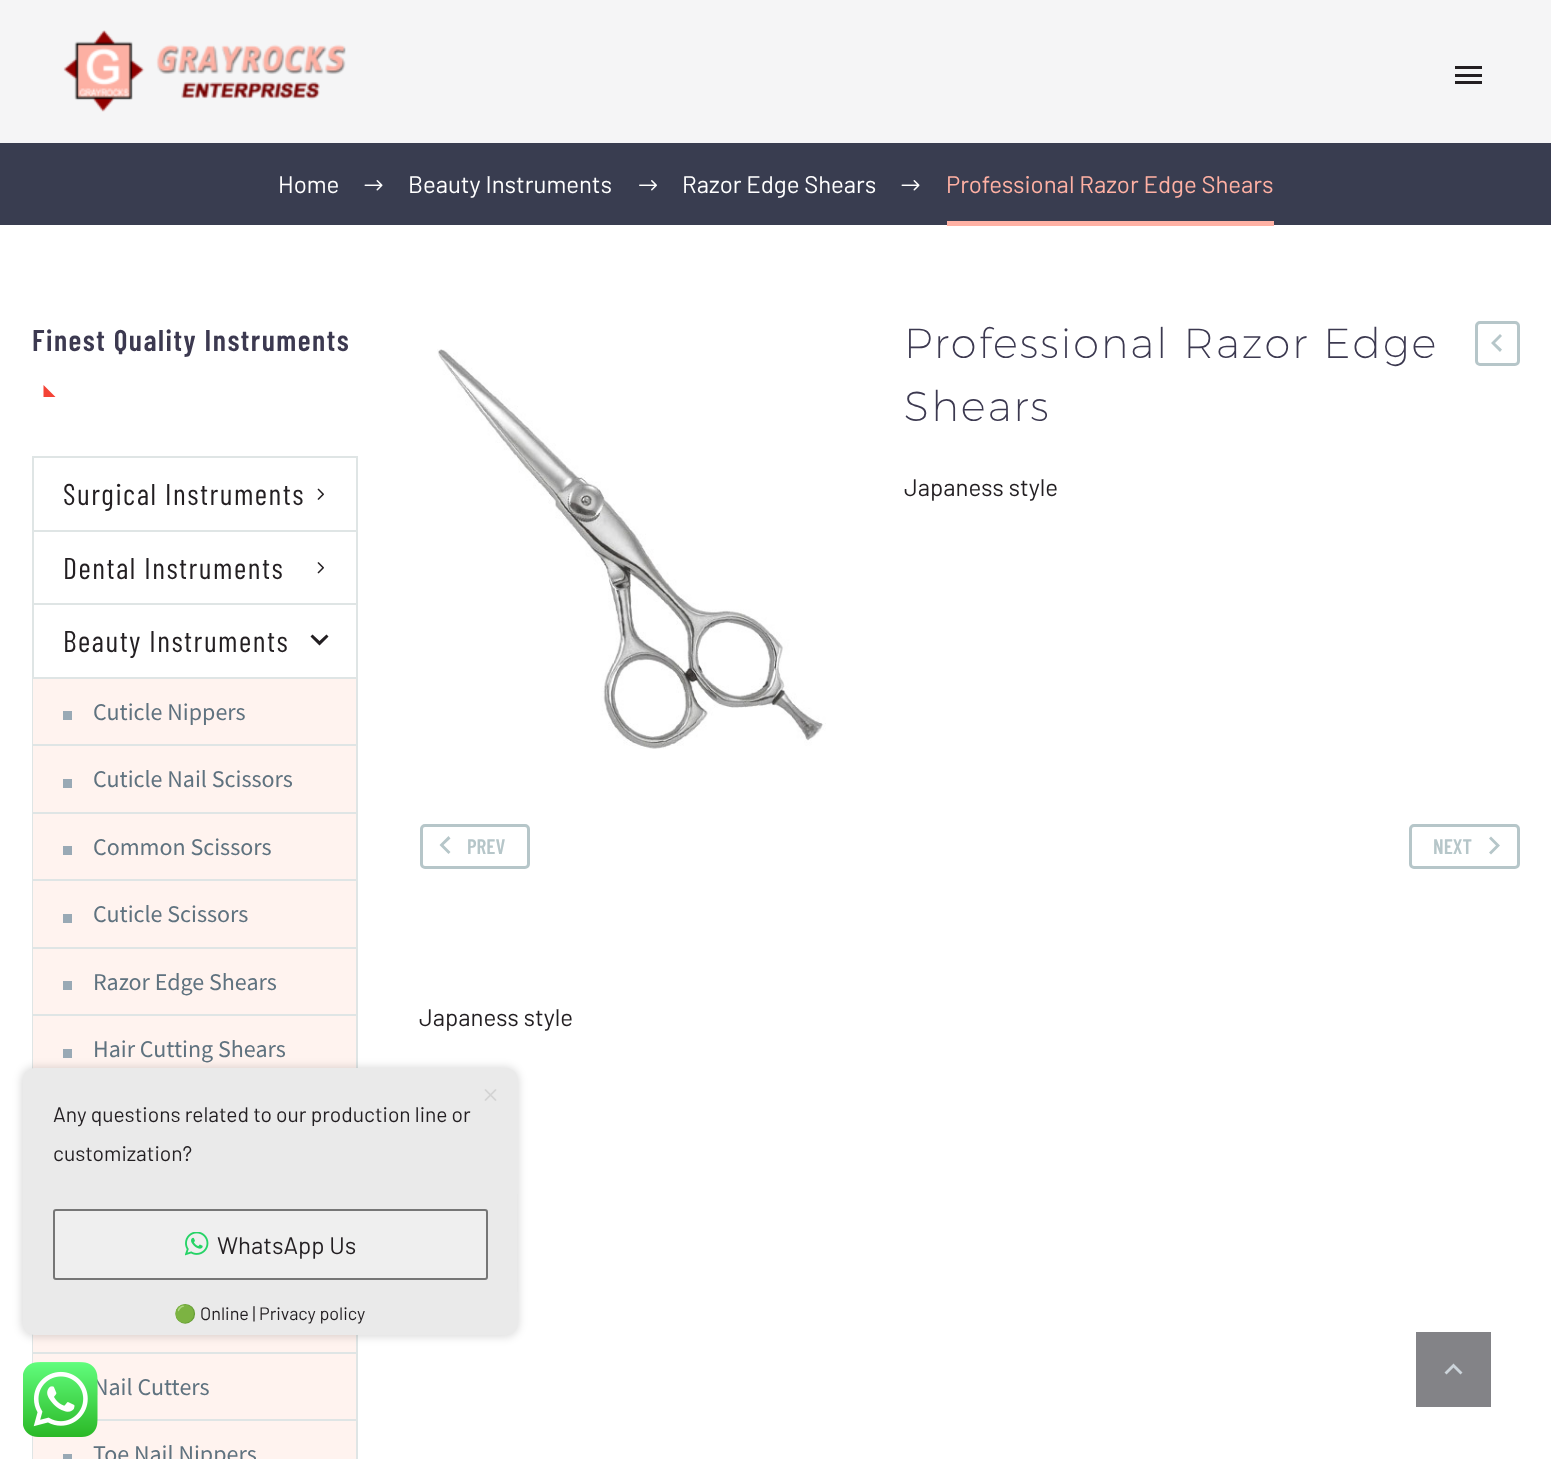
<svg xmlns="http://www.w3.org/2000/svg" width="1551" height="1459">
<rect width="100%" height="100%" fill="#fff"/>
<rect width="1551" height="143" fill="#f5f5f6"/>
<image x="63" y="30" width="283" height="82" href="media/1.png"/>
<rect x="1455" y="66" width="27" height="3" fill="#231f22"/>
<rect x="1455" y="74" width="27" height="3" fill="#231f22"/>
<rect x="1455" y="81" width="27" height="3" fill="#231f22"/>
<rect y="143" width="1551" height="82" fill="#393d50"/>
<text x="278" y="193" style="font-family:Barlow;font-size:24px;fill:#fff">Home</text>
<image x="364" y="180" width="19" height="11" href="media/2.png"/>
<text x="408" y="193" style="font-family:Barlow;font-size:24px;fill:#fff">Beauty Instruments</text>
<image x="639" y="180" width="18" height="11" href="media/3.png"/>
<text x="682" y="193" style="font-family:Barlow;font-size:24px;fill:#fff">Razor Edge Shears</text>
<image x="901" y="180" width="19" height="11" href="media/2.png"/>
<rect x="947" y="221" width="327" height="5" fill="#ffb1a4"/>
<text x="946" y="193" style="font-family:Barlow;font-size:24px;fill:#ffb1a4">Professional Razor Edge Shears</text>
<text x="32" y="351" style="font-family:Barlow Condensed;font-size:30px;font-weight:600;letter-spacing:1.5px;fill:#3c3950">Finest Quality Instruments</text>
<path d="M43.5 385v12h12z" fill="#f44336"/>
<rect x="356" y="456" width="2" height="1003" fill="#dfe5e5"/>
<rect x="32" y="456" width="2" height="1003" fill="#dfe5e5"/>
<rect x="33" y="456" width="323" height="2" fill="#dfe5e5"/>
<text x="63" y="505" style="font-family:Barlow Condensed;font-size:30px;letter-spacing:1.5px;fill:#231f22">Surgical Instruments</text>
<image x="317" y="488" width="7" height="12" href="media/4.png"/>
<rect x="33" y="530" width="323" height="2" fill="#dfe5e5"/>
<text x="63" y="579" style="font-family:Barlow Condensed;font-size:30px;letter-spacing:1.5px;fill:#231f22">Dental Instruments</text>
<image x="317" y="562" width="7" height="12" href="media/5.png"/>
<rect x="33" y="603" width="323" height="2" fill="#dfe5e5"/>
<text x="63" y="652" style="font-family:Barlow Condensed;font-size:30px;letter-spacing:1.5px;fill:#231f22">Beauty Instruments</text>
<path d="M312.5 634.5l7 6.5l7-6.5l2 2l-9 9l-9-9z" fill="#231f22"/>
<rect x="33" y="679" width="323" height="780" fill="#fff3ef"/>
<rect x="33" y="677" width="323" height="2" fill="#dfe5e5"/>
<rect x="63" y="711" width="9" height="9" fill="#99a9b5"/>
<text x="93" y="720" style="font-family:Source Sans Pro;font-size:24px;fill:#5f727f">Cuticle Nippers</text>
<rect x="33" y="744" width="323" height="2" fill="#dfe5e5"/>
<rect x="63" y="779" width="9" height="9" fill="#99a9b5"/>
<text x="93" y="787" style="font-family:Source Sans Pro;font-size:24px;fill:#5f727f">Cuticle Nail Scissors</text>
<rect x="33" y="812" width="323" height="2" fill="#dfe5e5"/>
<rect x="63" y="846" width="9" height="9" fill="#99a9b5"/>
<text x="93" y="855" style="font-family:Source Sans Pro;font-size:24px;fill:#5f727f">Common Scissors</text>
<rect x="33" y="879" width="323" height="2" fill="#dfe5e5"/>
<rect x="63" y="914" width="9" height="9" fill="#99a9b5"/>
<text x="93" y="922" style="font-family:Source Sans Pro;font-size:24px;fill:#5f727f">Cuticle Scissors</text>
<rect x="33" y="947" width="323" height="2" fill="#dfe5e5"/>
<rect x="63" y="981" width="9" height="9" fill="#99a9b5"/>
<text x="93" y="990" style="font-family:Source Sans Pro;font-size:24px;fill:#5f727f">Razor Edge Shears</text>
<rect x="33" y="1014" width="323" height="2" fill="#dfe5e5"/>
<rect x="63" y="1049" width="9" height="9" fill="#99a9b5"/>
<text x="93" y="1057" style="font-family:Source Sans Pro;font-size:24px;fill:#5f727f">Hair Cutting Shears</text>
<rect x="33" y="1352" width="323" height="2" fill="#dfe5e5"/>
<text x="93" y="1395" style="font-family:Source Sans Pro;font-size:24px;fill:#5f727f">Nail Cutters</text>
<rect x="97" y="1419" width="259" height="2" fill="#dfe5e5"/>
<rect x="63" y="1454" width="9" height="5" fill="#99a9b5"/>
<text x="93" y="1462" style="font-family:Source Sans Pro;font-size:24px;fill:#5f727f">Toe Nail Nippers</text>
<image x="437" y="349" width="389" height="400" href="media/6.png"/>
<text x="904" y="358" style="font-family:Montserrat;font-size:42px;font-weight:200;letter-spacing:2.1px;fill:#3c3950">Professional Razor Edge</text>
<text x="904" y="421" style="font-family:Montserrat;font-size:42px;font-weight:200;letter-spacing:2.1px;fill:#3c3950">Shears</text>
<rect x="1476.5" y="322.5" width="42" height="42" rx="3.5" fill="none" stroke="#b6c6c9" stroke-width="3"/>
<path d="M1502 349.5l-7-6.5l7-7l-2-2l-9 9l9 9z" fill="#b6c6c9"/>
<text x="904" y="496" style="font-family:Barlow;font-size:24px;fill:#231f22">Japaness style</text>
<rect x="421.5" y="825.5" width="107" height="42" rx="3.5" fill="none" stroke="#b6c6c9" stroke-width="3"/>
<path d="M450.5 852l-7-7l7-6.5l-2-2.5l-9 9l9 9z" fill="#b6c6c9"/>
<text x="467" y="854" style="font-family:Barlow Condensed;font-size:21px;font-weight:600;fill:#b6c6c9">PREV</text>
<rect x="1410.5" y="825.5" width="108" height="42" rx="3.5" fill="none" stroke="#b6c6c9" stroke-width="3"/>
<text x="1433" y="854" style="font-family:Barlow Condensed;font-size:21px;font-weight:600;fill:#b6c6c9">NEXT</text>
<path d="M1489 852.5l7-7l-7-7l2-2l9 9l-9 9z" fill="#b6c6c9"/>
<text x="419" y="1026" style="font-family:Barlow;font-size:24px;fill:#231f22">Japaness style</text>
<rect x="1416" y="1332" width="75" height="75" fill="#838387"/>
<path d="M1446.5 1374.5l7-7l7 7l2-2l-9-9l-9 9z" fill="#ccd4da"/>
<rect x="21" y="1067" width="498" height="270" rx="14" fill="#00000024" filter="blur(4px)"/>
<path d="M35 1068h471c6.5 0 12 5.5 12 12v114h-495v-114c0-6.5 5.5-12 12-12z" fill="#eaeaea"/>
<image x="484" y="1089" width="13" height="12" href="media/7.png"/>
<text x="53" y="1122" style="font-family:Barlow;font-size:21px;fill:#231f22">Any questions related to our production line or</text>
<text x="53" y="1161" style="font-family:Barlow;font-size:21px;fill:#231f22">customization?</text>
<rect x="23" y="1194" width="494" height="98" fill="#eaeaea"/>
<rect x="54" y="1210" width="433" height="69" rx="2" fill="#efefef" stroke="#767676" stroke-width="2"/>
<image x="185" y="1232" width="24" height="24" href="media/8.png"/>
<text x="217" y="1254" style="font-family:Barlow;font-size:24px;fill:#231f22">WhatsApp Us</text>
<path d="M23 1292h495v31c0 6.5-5.5 12-12 12h-471c-6.5 0-12-5.5-12-12z" fill="#eaeaea"/>
<text x="174" y="1320" style="font-family:Noto Color Emoji;font-size:18px;fill:#231f22">🟢</text>
<text x="200" y="1320" style="font-family:Barlow;font-size:18px;fill:#231f22">Online | Privacy policy</text>
<image x="23" y="1362" width="75" height="75" href="media/9.png"/>
</svg>
